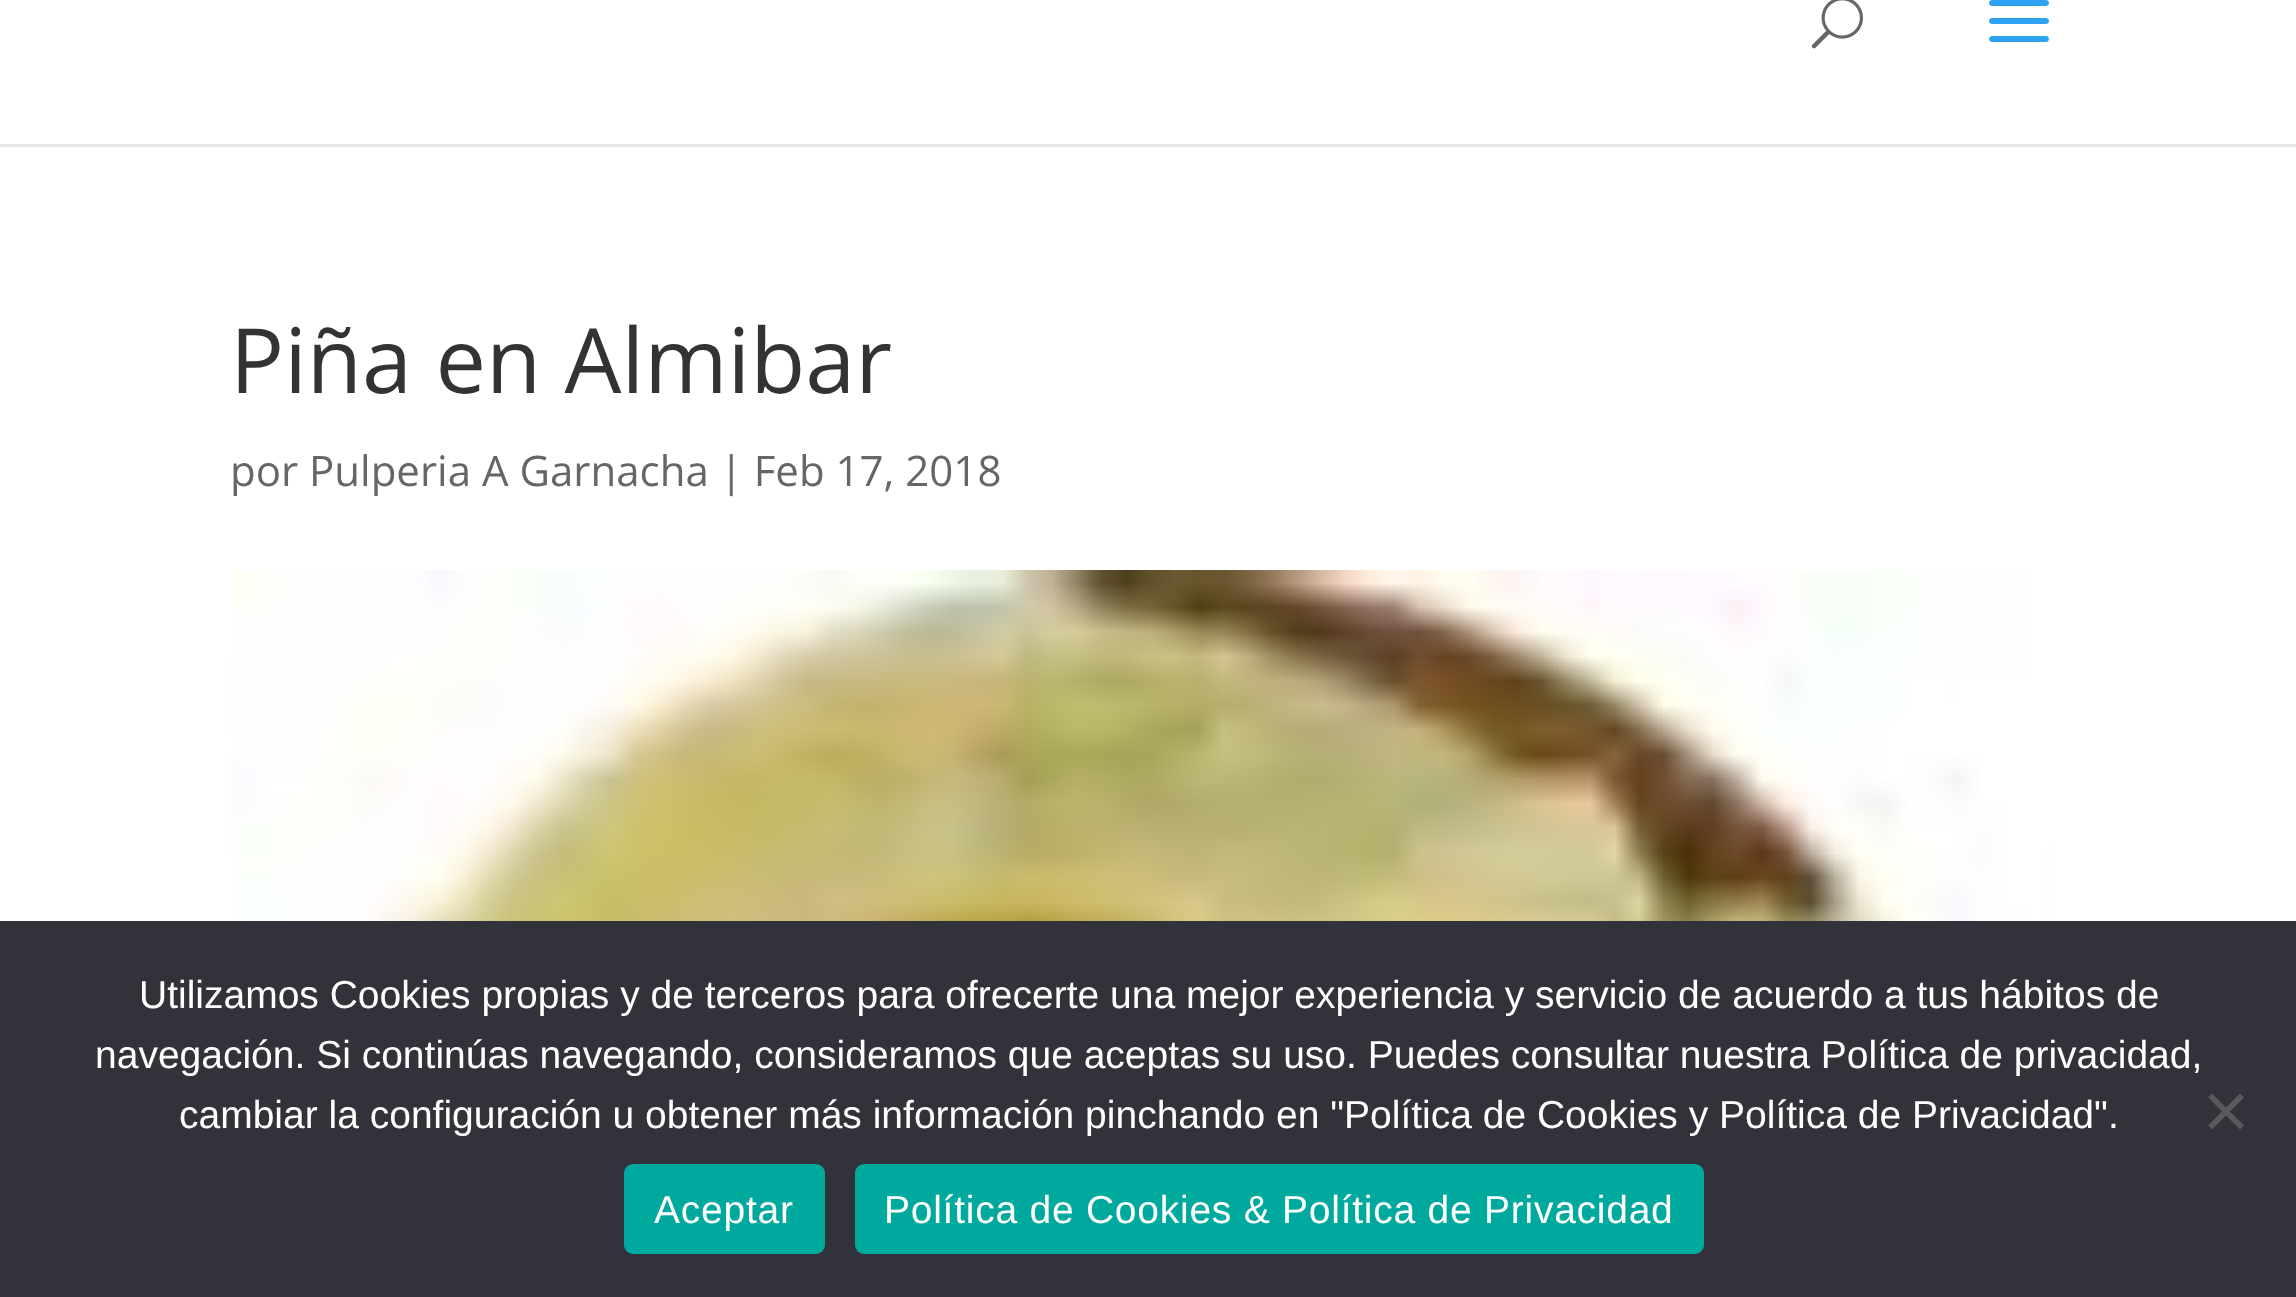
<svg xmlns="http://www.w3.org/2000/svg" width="2296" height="1297">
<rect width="100%" height="100%" fill="#fff"/>
<rect y="144" width="2296" height="3" fill="#e6e6e6"/>
<image x="1811" y="0" width="52" height="49" href="media/1.png"/>
<image x="1989" y="0" width="60" height="42" href="media/2.png"/>
<text x="230" y="393" style="font-family:Open Sans;font-size:90px;fill:#333">Piña en Almibar</text>
<text x="230" y="486" style="font-family:Open Sans;font-size:42px;fill:#666">por Pulperia A Garnacha | Feb 17, 2018</text>
<image x="231" y="570" width="1836" height="351" href="media/3.png"/>
<rect y="921" width="2296" height="376" fill="#32323a"/>
<text x="139" y="1008" style="font-family:Liberation Sans;font-size:39px;fill:#fff">Utilizamos Cookies propias y de terceros para ofrecerte una mejor experiencia y servicio de acuerdo a tus hábitos de</text>
<text x="95" y="1068" style="font-family:Liberation Sans;font-size:39px;fill:#fff">navegación. Si continúas navegando, consideramos que aceptas su uso. Puedes consultar nuestra Política de privacidad,</text>
<text x="179" y="1128" style="font-family:Liberation Sans;font-size:39px;fill:#fff">cambiar la configuración u obtener más información pinchando en "Política de Cookies y Política de Privacidad".</text>
<path d="M2240 1093.5l4 4l-32 32l-4-4z" fill="#59595d"/>
<path d="M2208 1097.5l4-4l32 32l-4 4z" fill="#59595d"/>
<rect x="624" y="1164" width="201" height="90" rx="9" fill="#00a99d"/>
<text x="654" y="1223" style="font-family:Liberation Sans;font-size:39px;letter-spacing:0.75px;fill:#fff">Aceptar</text>
<rect x="855" y="1164" width="849" height="90" rx="9" fill="#00a99d"/>
<text x="884" y="1223" style="font-family:Liberation Sans;font-size:39px;letter-spacing:0.75px;fill:#fff">Política de Cookies &amp; Política de Privacidad</text>
</svg>
